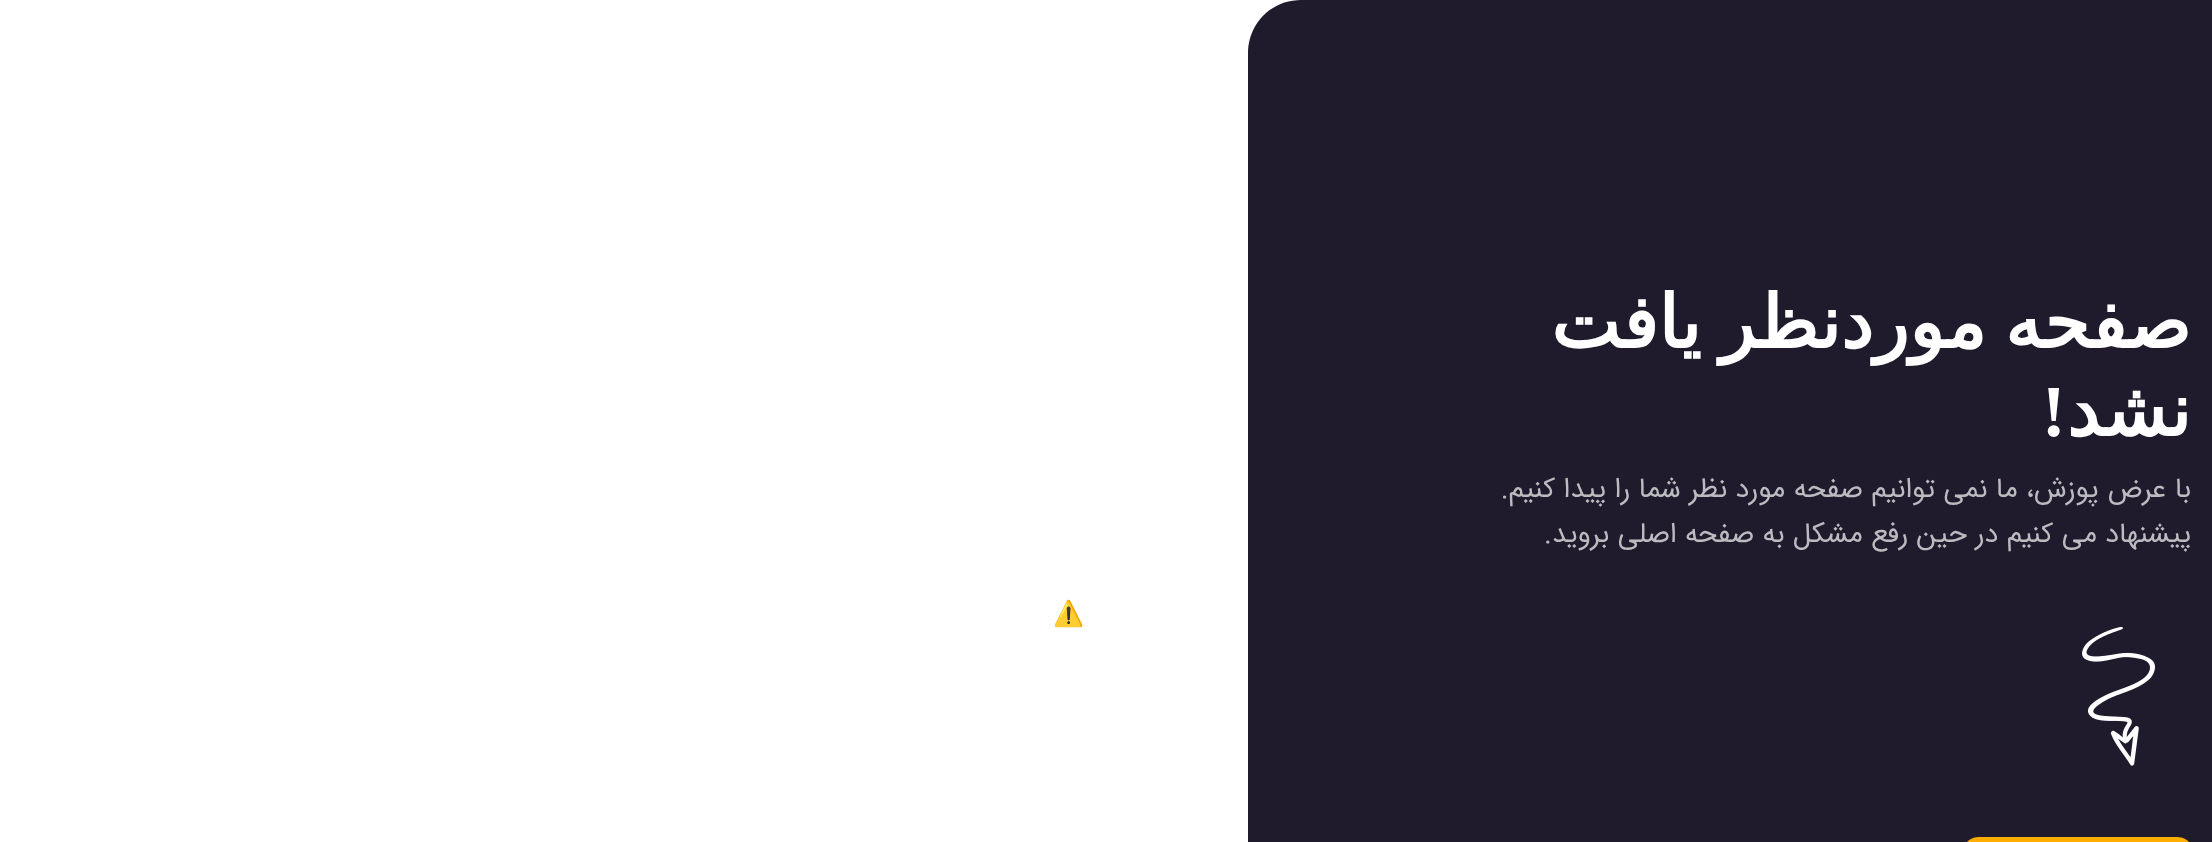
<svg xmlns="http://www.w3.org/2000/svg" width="2212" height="842">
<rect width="100%" height="100%" fill="#fff"/>
<path d="M1301 0h911v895h-911c-29.5 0-53-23.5-53-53v-789c0-29.5 23.5-53 53-53z" fill="#1f1b2d"/>
<text x="2191" y="348" word-spacing="-5" style="font-family:DejaVu Sans;font-size:73.5px;font-weight:bold;direction:rtl;fill:#fff">صفحه موردنظر یافت</text>
<text x="2191" y="436" style="font-family:DejaVu Sans;font-size:73.5px;font-weight:bold;direction:rtl;fill:#fff">نشد</text>
<text x="2066" y="436" style="font-family:Liberation Serif;font-size:73.5px;font-weight:bold;direction:rtl;fill:#fff">!</text>
<text x="2191" y="497" style="font-family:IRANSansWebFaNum;font-size:28px;direction:rtl;fill:#bcbbc0">با عرض پوزش، ما نمی توانیم صفحه مورد نظر شما را پیدا کنیم.</text>
<text x="2191" y="542" style="font-family:IRANSansWebFaNum;font-size:28px;direction:rtl;fill:#bcbbc0">پیشنهاد می کنیم در حین رفع مشکل به صفحه اصلی بروید.</text>
<image x="2082" y="627" width="73" height="139" href="media/1.png"/>
<rect x="1966" y="838" width="224" height="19" rx="13" fill="#ffae00" stroke="#ffae00" stroke-width="2"/>
<text x="1053" y="622" style="font-family:Noto Color Emoji;font-size:25px;fill:#120f1b">⚠️</text>
</svg>
